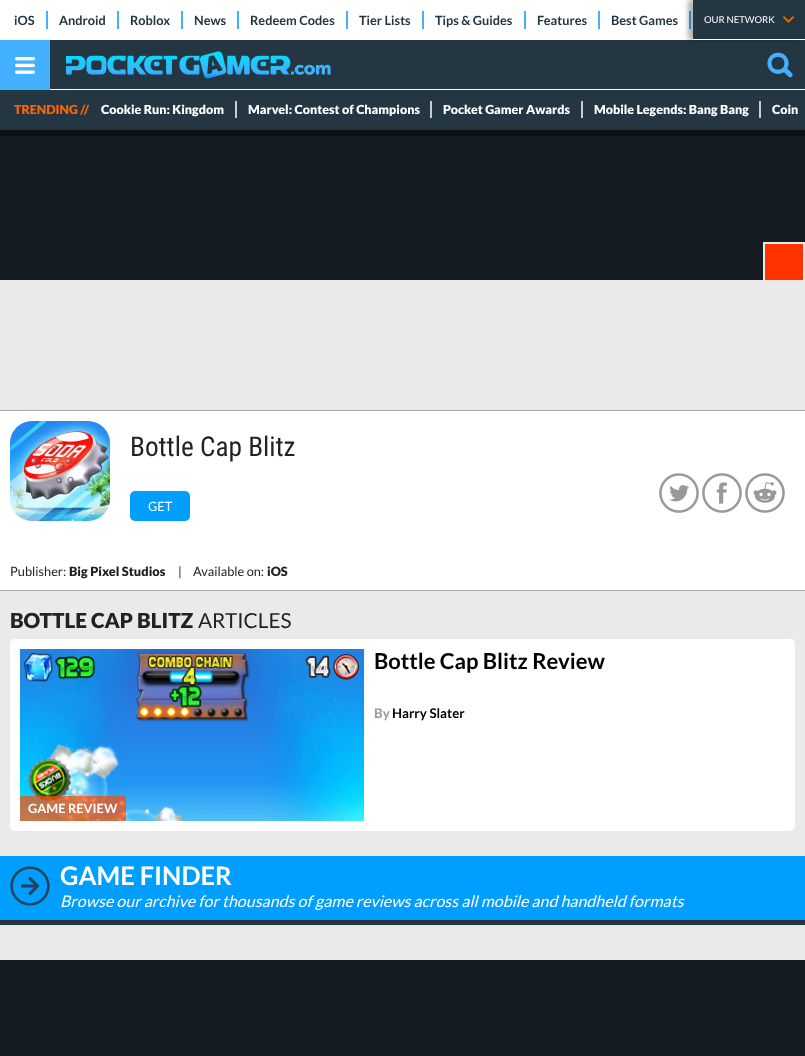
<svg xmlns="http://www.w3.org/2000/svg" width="805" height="1056">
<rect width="100%" height="100%" fill="#141c22"/>
<rect y="130" width="805" height="6" fill="#0c1114"/>
<rect width="805" height="90" fill="#fff"/>
<text x="14" y="25" style="font-family:Lato;font-size:12.75px;font-weight:bold;fill:#243642">iOS</text>
<rect x="46" y="11" width="2" height="18" fill="#42b0ff"/>
<text x="59" y="25" style="font-family:Lato;font-size:12.75px;font-weight:bold;fill:#243642">Android</text>
<rect x="117" y="11" width="2" height="18" fill="#42b0ff"/>
<text x="130" y="25" style="font-family:Lato;font-size:12.75px;font-weight:bold;fill:#243642">Roblox</text>
<rect x="181" y="11" width="2" height="18" fill="#42b0ff"/>
<text x="194" y="25" style="font-family:Lato;font-size:12.75px;font-weight:bold;fill:#243642">News</text>
<rect x="237" y="11" width="2" height="18" fill="#42b0ff"/>
<text x="250" y="25" style="font-family:Lato;font-size:12.75px;font-weight:bold;fill:#243642">Redeem Codes</text>
<rect x="346" y="11" width="2" height="18" fill="#42b0ff"/>
<text x="359" y="25" style="font-family:Lato;font-size:12.75px;font-weight:bold;fill:#243642">Tier Lists</text>
<rect x="422" y="11" width="2" height="18" fill="#42b0ff"/>
<text x="435" y="25" style="font-family:Lato;font-size:12.75px;font-weight:bold;fill:#243642">Tips &amp; Guides</text>
<rect x="524" y="11" width="2" height="18" fill="#42b0ff"/>
<text x="537" y="25" style="font-family:Lato;font-size:12.75px;font-weight:bold;fill:#243642">Features</text>
<rect x="598" y="11" width="2" height="18" fill="#42b0ff"/>
<text x="611" y="25" style="font-family:Lato;font-size:12.75px;font-weight:bold;fill:#243642">Best Games</text>
<rect x="689" y="11" width="2" height="18" fill="#42b0ff"/>
<rect x="50" y="40" width="755" height="49" fill="#243642"/>
<rect x="688" width="112" height="40" fill="#0000004d" filter="blur(2.5px)"/>
<rect x="693" width="112" height="39" fill="#243642"/>
<rect x="693" y="39" width="112" height="1" fill="#fff"/>
<text x="704" y="23" style="font-family:Lato;font-size:9.5px;fill:#fff">OUR NETWORK</text>
<image x="783" y="16" width="11" height="7" href="media/1.png"/>
<rect y="40" width="50" height="50" fill="#42b0ff"/>
<image x="15" y="57" width="20" height="17" href="media/2.png"/>
<image x="66" y="51" width="265" height="28" href="media/3.png"/>
<image x="767" y="52" width="26" height="26" href="media/4.png"/>
<rect y="90" width="805" height="40" fill="#243642"/>
<text x="14" y="114" style="font-family:Lato;font-size:12.5px;font-weight:900;fill:#f60">TRENDING //</text>
<text x="101" y="114" style="font-family:Lato;font-size:12.5px;font-weight:900;fill:#fff">Cookie Run: Kingdom</text>
<rect x="235" y="101" width="2" height="17" fill="#ccc"/>
<text x="248" y="114" style="font-family:Lato;font-size:12.5px;font-weight:900;fill:#fff">Marvel: Contest of Champions</text>
<rect x="430" y="101" width="2" height="17" fill="#ccc"/>
<text x="443" y="114" style="font-family:Lato;font-size:12.5px;font-weight:900;fill:#fff">Pocket Gamer Awards</text>
<rect x="581" y="101" width="2" height="17" fill="#ccc"/>
<text x="594" y="114" style="font-family:Lato;font-size:12.5px;font-weight:900;fill:#fff">Mobile Legends: Bang Bang</text>
<rect x="759" y="101" width="2" height="17" fill="#ccc"/>
<text x="772" y="114" style="font-family:Lato;font-size:12.5px;font-weight:900;fill:#fff">Coin</text>
<rect x="763" y="242" width="42" height="38" fill="#eaeaea"/>
<rect x="765" y="244" width="38" height="36" fill="#f30"/>
<rect y="280" width="805" height="130" fill="#eaeaea"/>
<rect y="591" width="805" height="265" fill="#eaeaea"/>
<rect y="411" width="805" height="179" fill="#fff"/>
<rect y="410" width="805" height="1" fill="#aaa"/>
<rect y="590" width="805" height="1" fill="#aaa"/>
<image x="10" y="421" width="100" height="100" href="media/5.png"/>
<text x="130" y="456" style="font-family:Roboto Condensed;font-size:27.25px;fill:#222">Bottle Cap Blitz</text>
<rect x="130" y="491" width="60" height="30" rx="5" fill="#009fff"/>
<text x="148" y="511" style="font-family:Lato;font-size:12.75px;fill:#fff">GET</text>
<image x="659" y="473" width="40" height="40" href="media/6.png"/>
<image x="702" y="473" width="40" height="40" href="media/7.png"/>
<image x="745" y="473" width="40" height="40" href="media/8.png"/>
<text x="10" y="576" style="font-family:Lato;font-size:12.75px;fill:#222">Publisher:</text>
<text x="69" y="576" style="font-family:Lato;font-size:12.75px;font-weight:900;fill:#222">Big Pixel Studios</text>
<text x="178" y="576" style="font-family:Lato;font-size:12.75px;fill:#222">|</text>
<text x="193" y="576" style="font-family:Lato;font-size:12.75px;fill:#222">Available on:</text>
<text x="267" y="576" style="font-family:Lato;font-size:12.75px;font-weight:900;fill:#222">iOS</text>
<text x="10" y="628" style="font-family:Lato;font-size:20.75px;font-weight:900;fill:#222">BOTTLE CAP BLITZ</text>
<text x="198" y="628" style="font-family:Lato;font-size:20.75px;fill:#222">ARTICLES</text>
<rect x="10" y="639" width="785" height="192" rx="5" fill="#fff"/>
<text x="374" y="669" style="font-family:Lato;font-size:22px;font-weight:bold;fill:#000">Bottle Cap Blitz Review</text>
<text x="374" y="718" style="font-family:Lato;font-size:13.25px;font-weight:bold;fill:#999">By</text>
<text x="392" y="718" style="font-family:Lato;font-size:13.25px;font-weight:bold;fill:#000">Harry Slater</text>
<image x="20" y="649" width="344" height="172" href="media/9.png"/>
<rect x="20" y="796" width="106" height="25" fill="#ff4800b3"/>
<text x="28" y="813" style="font-family:Lato;font-size:12.75px;font-weight:bold;fill:#fff">GAME REVIEW</text>
<rect y="856" width="805" height="64" fill="#009fff"/>
<rect y="920" width="805" height="5" fill="#243642"/>
<image x="10" y="866" width="40" height="40" href="media/10.png"/>
<text x="60" y="885" style="font-family:Lato;font-size:25.5px;font-weight:bold;fill:#fff">GAME FINDER</text>
<text x="60" y="907" style="font-family:Lato;font-size:16px;font-style:italic;fill:#fff">Browse our archive for thousands of game reviews across all mobile and handheld formats</text>
<rect y="925" width="805" height="35" fill="#eaeaea"/>
</svg>
